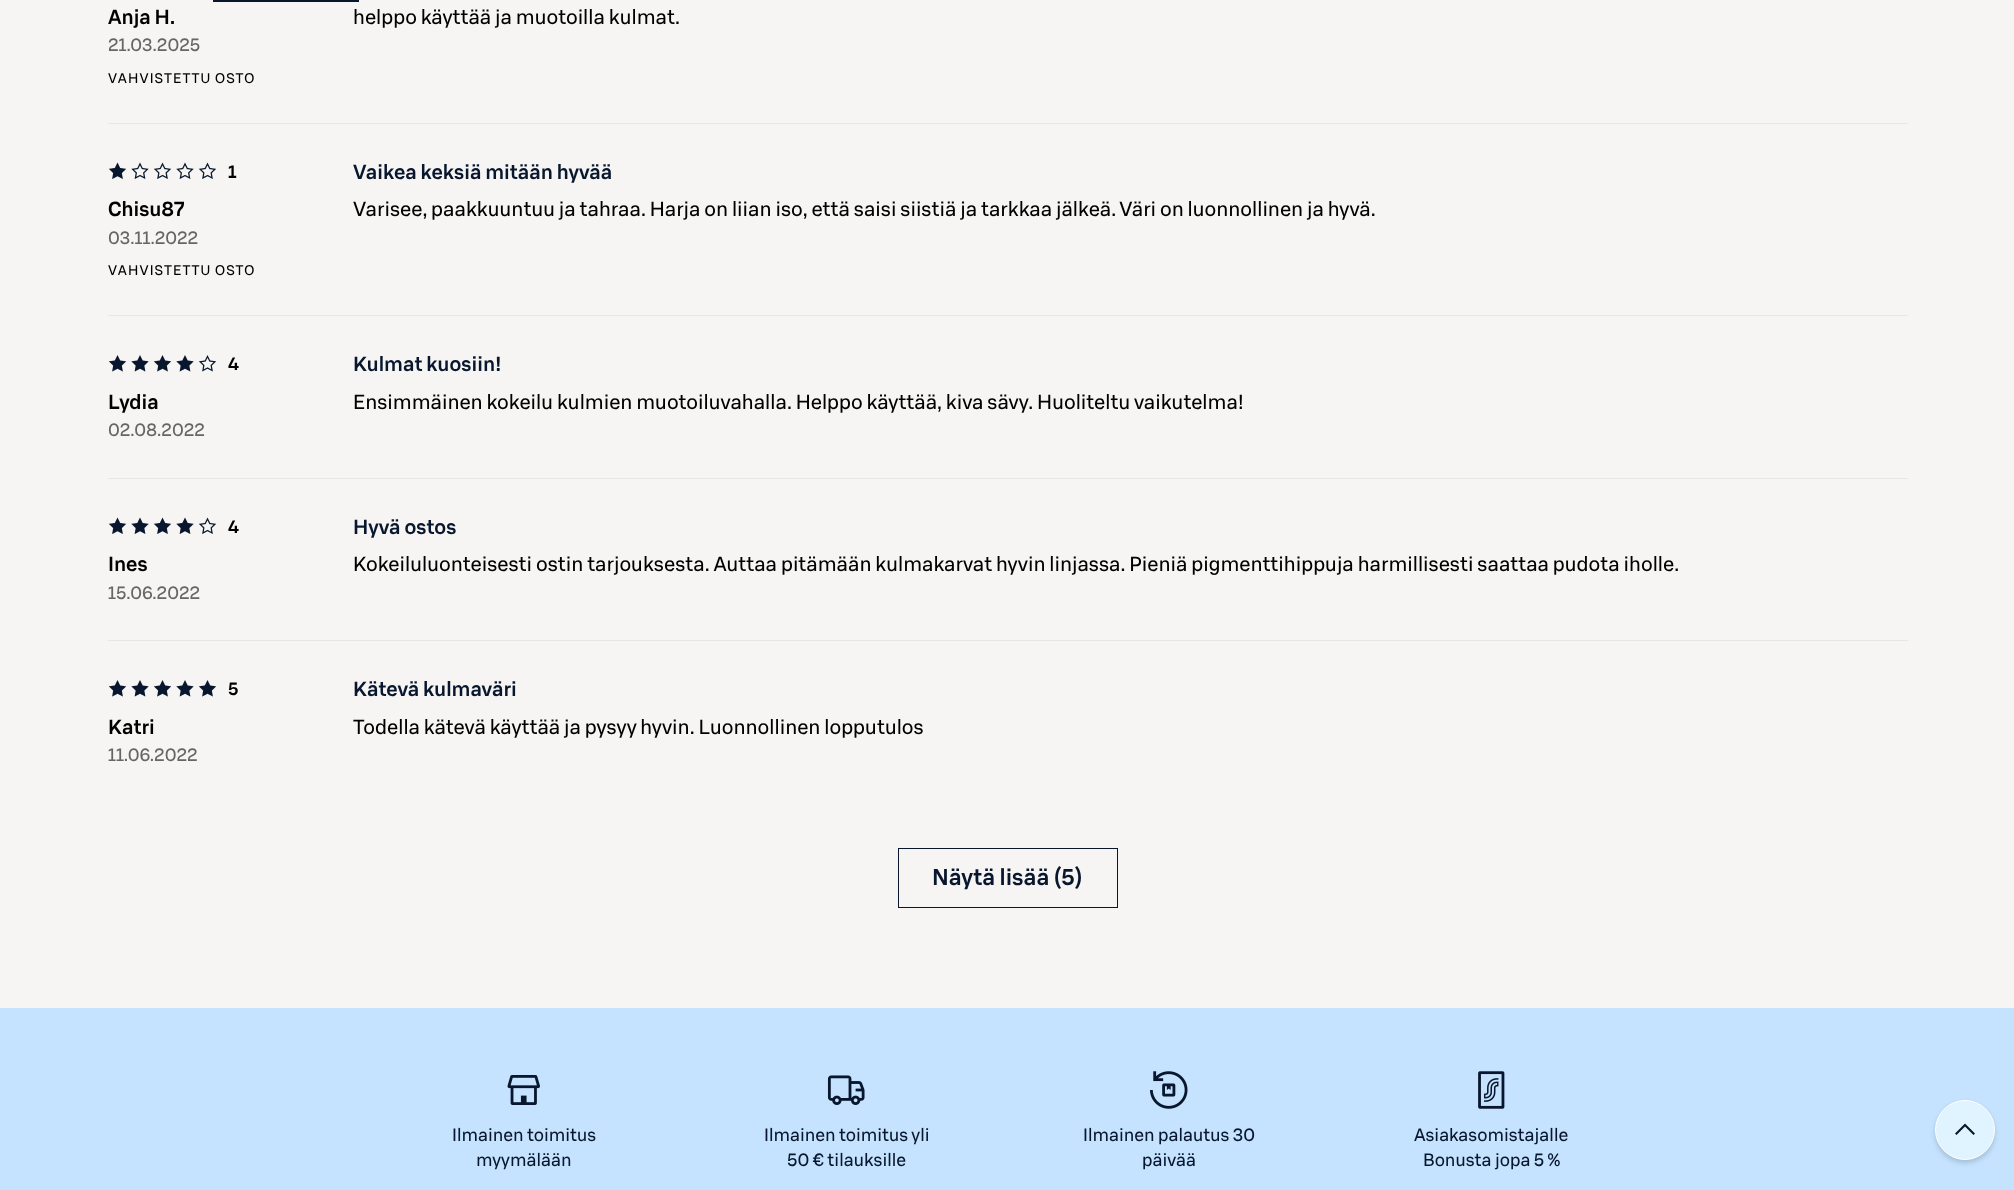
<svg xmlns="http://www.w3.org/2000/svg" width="2014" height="1190">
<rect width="100%" height="100%" fill="#c5e3ff"/>
<rect width="2014" height="1008" fill="#f6f5f3"/>
<rect x="213" width="146" height="2" fill="#08172d"/>
<rect x="108" y="123" width="1800" height="1" fill="#e8e6e0"/>
<text x="108" y="24" style="font-family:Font;font-size:20px;font-weight:500;fill:#000">Anja H.</text>
<text x="108" y="51" style="font-family:Font;font-size:17.5px;fill:#676664">21.03.2025</text>
<text x="108" y="83" style="font-family:Font;font-size:13.75px;letter-spacing:1.1px;fill:#000">VAHVISTETTU OSTO</text>
<text x="353" y="24" style="font-family:Font;font-size:20px;fill:#000">helppo käyttää ja muotoilla kulmat.</text>
<rect x="108" y="315" width="1800" height="1" fill="#e8e6e0"/>
<image x="108" y="162" width="19" height="17" href="media/1.png"/>
<image x="131" y="162" width="18" height="17" href="media/2.png"/>
<image x="153" y="162" width="19" height="17" href="media/3.png"/>
<image x="176" y="162" width="18" height="17" href="media/2.png"/>
<image x="198" y="162" width="19" height="17" href="media/3.png"/>
<text x="228" y="178" style="font-family:Font;font-size:17.5px;font-weight:500;fill:#000">1</text>
<text x="108" y="216" style="font-family:Font;font-size:20px;font-weight:500;fill:#000">Chisu87</text>
<text x="108" y="244" style="font-family:Font;font-size:17.5px;fill:#676664">03.11.2022</text>
<text x="108" y="275" style="font-family:Font;font-size:13.75px;letter-spacing:1.1px;fill:#000">VAHVISTETTU OSTO</text>
<text x="353" y="179" style="font-family:Font;font-size:20px;font-weight:500;fill:#08172d">Vaikea keksiä mitään hyvää</text>
<text x="353" y="216" style="font-family:Font;font-size:20px;fill:#000">Varisee, paakkuuntuu ja tahraa. Harja on liian iso, että saisi siistiä ja tarkkaa jälkeä. Väri on luonnollinen ja hyvä.</text>
<rect x="108" y="478" width="1800" height="1" fill="#e8e6e0"/>
<image x="108" y="355" width="19" height="17" href="media/4.png"/>
<image x="131" y="355" width="18" height="17" href="media/5.png"/>
<image x="153" y="355" width="19" height="17" href="media/4.png"/>
<image x="176" y="355" width="18" height="17" href="media/5.png"/>
<image x="198" y="355" width="19" height="17" href="media/6.png"/>
<text x="228" y="370" style="font-family:Font;font-size:17.5px;font-weight:500;fill:#000">4</text>
<text x="108" y="409" style="font-family:Font;font-size:20px;font-weight:500;fill:#000">Lydia</text>
<text x="108" y="436" style="font-family:Font;font-size:17.5px;fill:#676664">02.08.2022</text>
<text x="353" y="371" style="font-family:Font;font-size:20px;font-weight:500;fill:#08172d">Kulmat kuosiin!</text>
<text x="353" y="409" style="font-family:Font;font-size:20px;fill:#000">Ensimmäinen kokeilu kulmien muotoiluvahalla. Helppo käyttää, kiva sävy. Huoliteltu vaikutelma!</text>
<rect x="108" y="640" width="1800" height="1" fill="#e8e6e0"/>
<image x="108" y="517" width="19" height="17" href="media/1.png"/>
<image x="131" y="517" width="18" height="17" href="media/7.png"/>
<image x="153" y="517" width="19" height="17" href="media/1.png"/>
<image x="176" y="517" width="18" height="17" href="media/7.png"/>
<image x="198" y="517" width="19" height="17" href="media/3.png"/>
<text x="228" y="533" style="font-family:Font;font-size:17.5px;font-weight:500;fill:#000">4</text>
<text x="108" y="571" style="font-family:Font;font-size:20px;font-weight:500;fill:#000">Ines</text>
<text x="108" y="599" style="font-family:Font;font-size:17.5px;fill:#676664">15.06.2022</text>
<text x="353" y="534" style="font-family:Font;font-size:20px;font-weight:500;fill:#08172d">Hyvä ostos</text>
<text x="353" y="571" style="font-family:Font;font-size:20px;fill:#000">Kokeiluluonteisesti ostin tarjouksesta. Auttaa pitämään kulmakarvat hyvin linjassa. Pieniä pigmenttihippuja harmillisesti saattaa pudota iholle.</text>
<image x="108" y="680" width="19" height="17" href="media/4.png"/>
<image x="131" y="680" width="18" height="17" href="media/5.png"/>
<image x="153" y="680" width="19" height="17" href="media/4.png"/>
<image x="176" y="680" width="18" height="17" href="media/5.png"/>
<image x="198" y="680" width="19" height="17" href="media/4.png"/>
<text x="228" y="695" style="font-family:Font;font-size:17.5px;font-weight:500;fill:#000">5</text>
<text x="108" y="734" style="font-family:Font;font-size:20px;font-weight:500;fill:#000">Katri</text>
<text x="108" y="761" style="font-family:Font;font-size:17.5px;fill:#676664">11.06.2022</text>
<text x="353" y="696" style="font-family:Font;font-size:20px;font-weight:500;fill:#08172d">Kätevä kulmaväri</text>
<text x="353" y="734" style="font-family:Font;font-size:20px;fill:#000">Todella kätevä käyttää ja pysyy hyvin. Luonnollinen lopputulos</text>
<rect x="898.5" y="848.5" width="219" height="59" fill="none" stroke="#08172d"/>
<text x="932" y="885" style="font-family:Font;font-size:22.5px;font-weight:500;fill:#08172d">Näytä lisää (5)</text>
<image x="507" y="1075" width="33" height="30" href="media/8.png"/>
<text x="452" y="1141" style="font-family:Font;font-size:17.5px;fill:#08172d">Ilmainen toimitus</text>
<text x="476" y="1166" style="font-family:Font;font-size:17.5px;fill:#08172d">myymälään</text>
<image x="827" y="1075" width="38" height="30" href="media/9.png"/>
<text x="764" y="1141" style="font-family:Font;font-size:17.5px;fill:#08172d">Ilmainen toimitus yli</text>
<text x="787" y="1166" style="font-family:Font;font-size:17.5px;fill:#08172d">50 € tilauksille</text>
<image x="1150" y="1071" width="38" height="38" href="media/10.png"/>
<text x="1083" y="1141" style="font-family:Font;font-size:17.5px;fill:#08172d">Ilmainen palautus 30</text>
<text x="1142" y="1166" style="font-family:Font;font-size:17.5px;fill:#08172d">päivää</text>
<image x="1478" y="1071" width="27" height="38" href="media/11.png"/>
<text x="1414" y="1141" style="font-family:Font;font-size:17.5px;fill:#08172d">Asiakasomistajalle</text>
<text x="1423" y="1166" style="font-family:Font;font-size:17.5px;fill:#08172d">Bonusta jopa 5 %</text>
<rect x="1935" y="1103" width="60" height="60" rx="30" fill="#00000029" filter="blur(2.5px)"/>
<circle cx="1965" cy="1130" r="29.5" fill="#e0f4ff" stroke="#fff"/>
<path d="M1965 1126.5l-8.5 8.5l-1.5-1.5l10-10l10 10l-1.5 1.5z" fill="#08172d" fill-rule="evenodd"/>
</svg>
